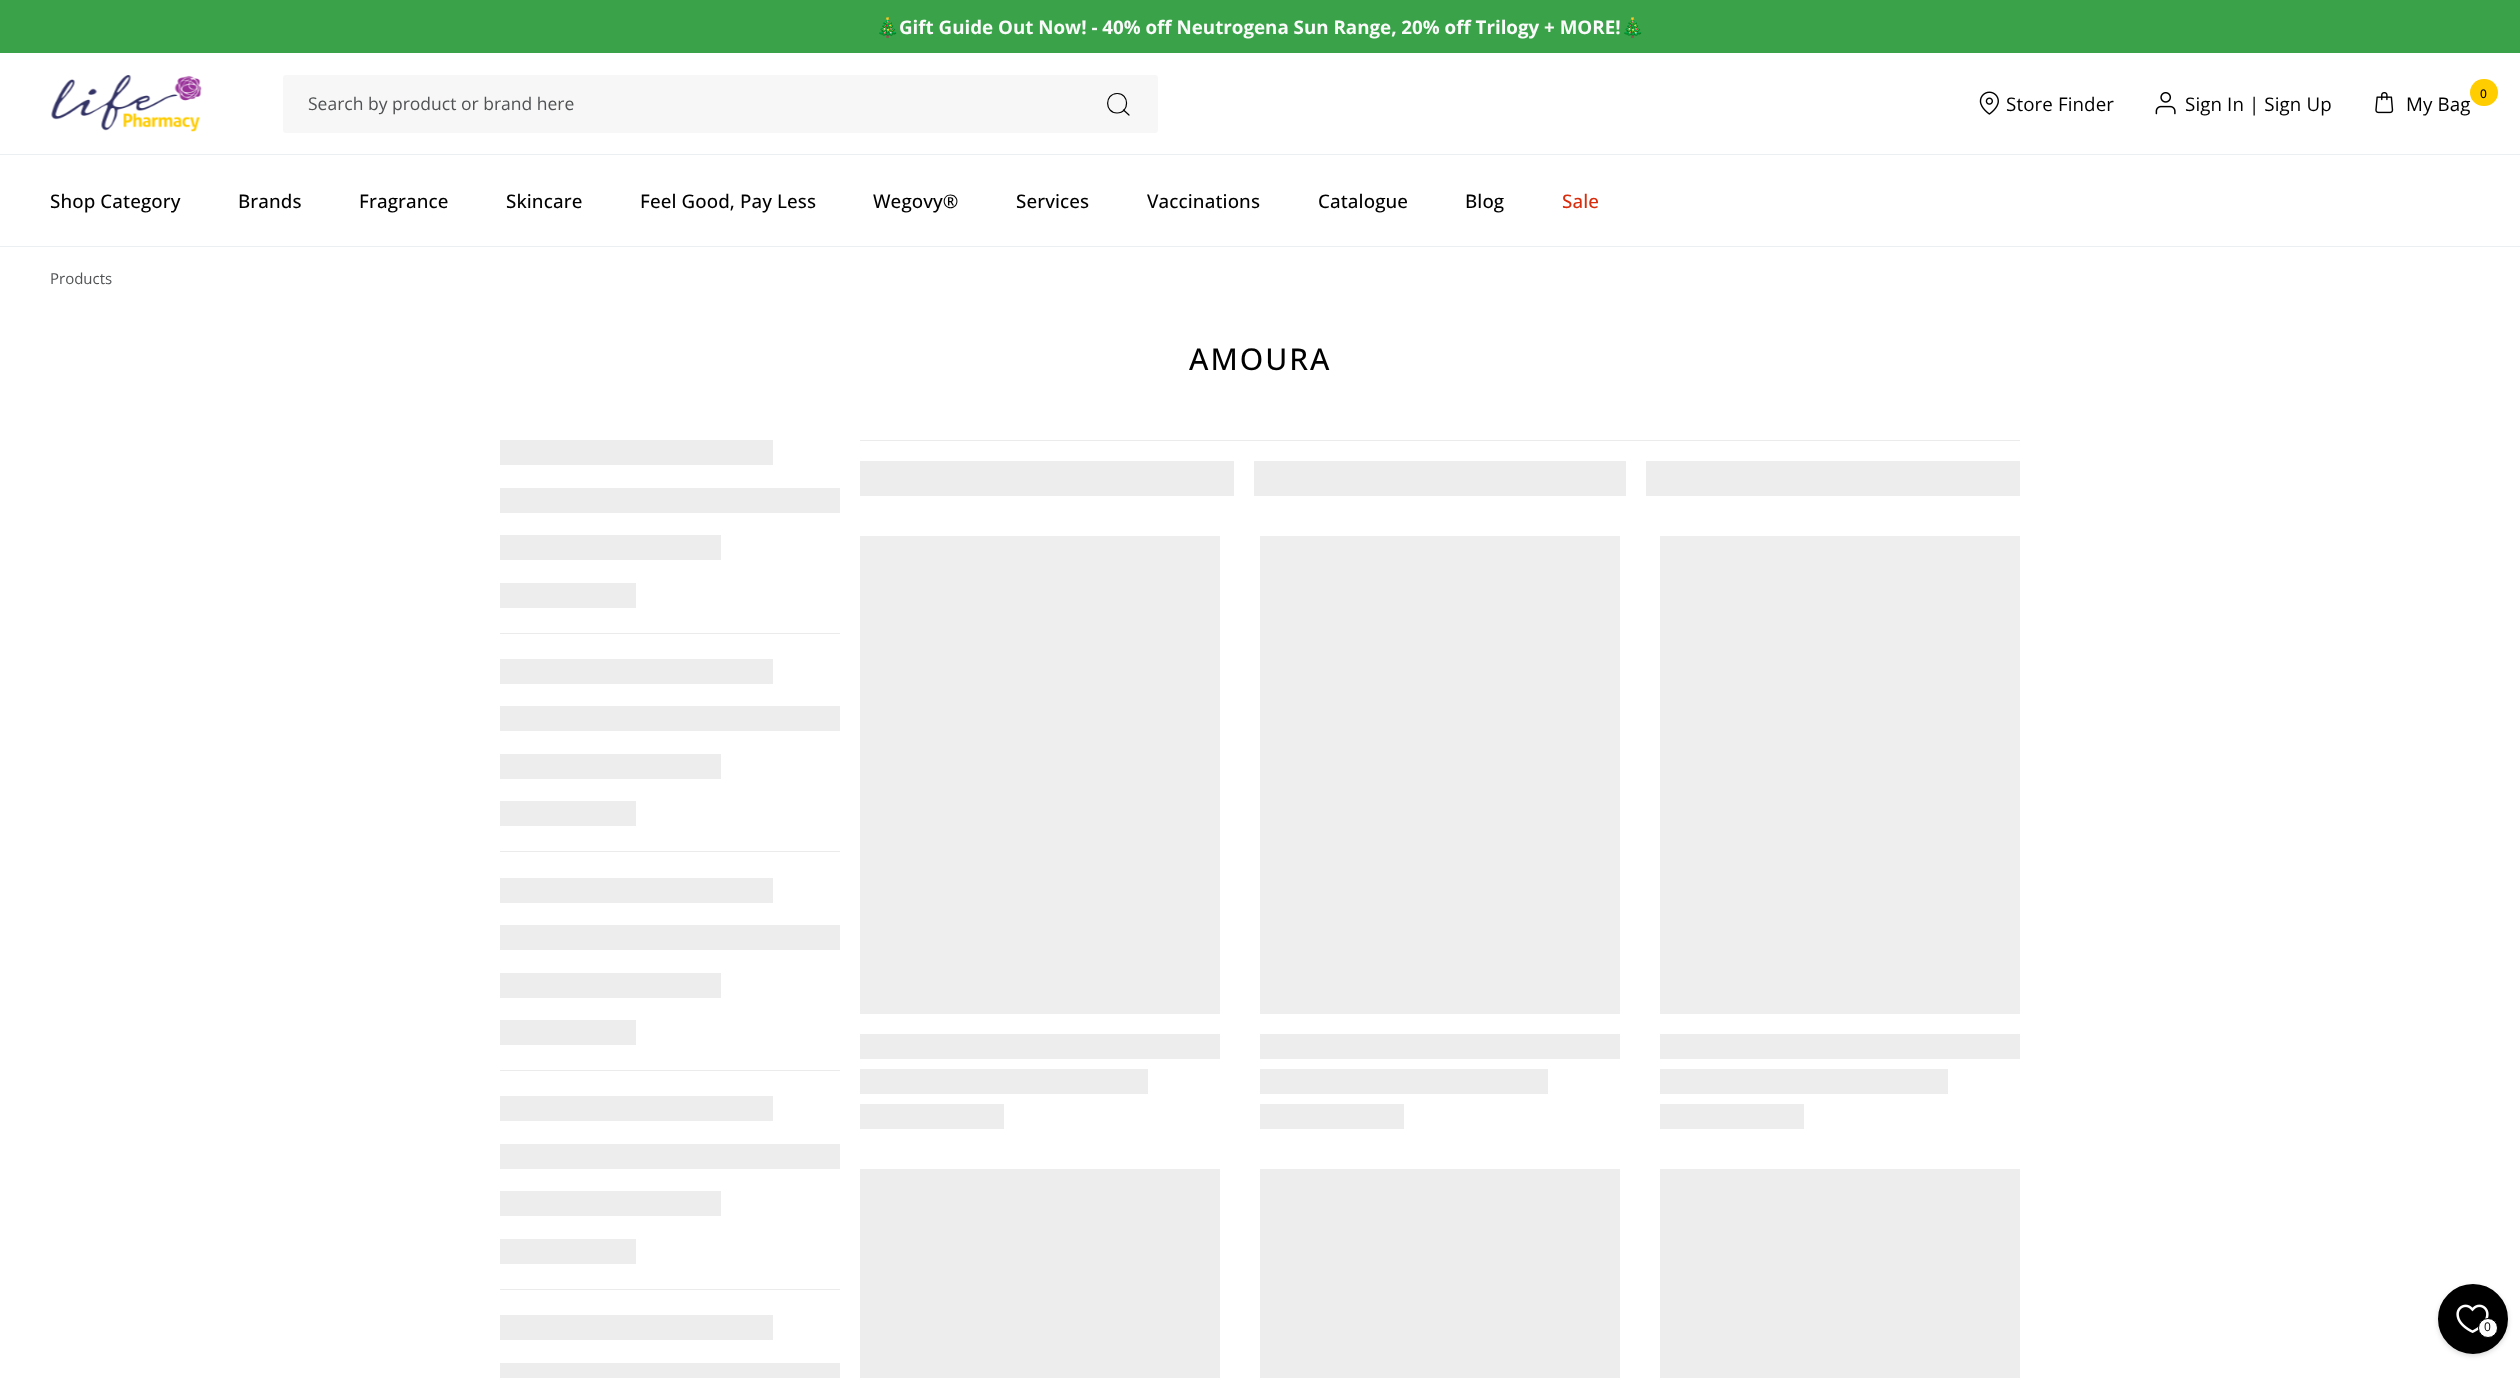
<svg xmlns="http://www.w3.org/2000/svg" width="2520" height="1378">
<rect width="100%" height="100%" fill="#fff"/>
<rect width="2520" height="53" fill="#3aa34a"/>
<text x="876" y="34" style="font-family:Noto Color Emoji;font-size:18.75px;font-weight:bold;fill:#fafafa">🎄</text>
<text x="899" y="34" style="font-family:Open Sans;font-size:18.75px;font-weight:bold;fill:#fafafa">Gift Guide Out Now! - 40% off Neutrogena Sun Range, 20% off Trilogy + MORE!</text>
<text x="1621" y="34" style="font-family:Noto Color Emoji;font-size:18.75px;font-weight:bold;fill:#fafafa">🎄</text>
<rect y="154" width="2520" height="1" fill="#eceff1"/>
<image x="51" y="75" width="151" height="57" href="media/1.png"/>
<rect x="283" y="75" width="875" height="58" rx="3" fill="#f7f7f7"/>
<text x="308" y="110" style="font-family:Open Sans;font-size:17.5px;fill:#505254">Search by product or brand here</text>
<path d="M1117 113c13 0 12.5-20 0-19.5c-12.5 .5-12.5 19 0 19.5m12 2l-5.5-5" fill="none" stroke="#000" stroke-width="1.2" stroke-linecap="round" stroke-linejoin="round"/>
<image x="1979" y="91" width="20" height="24" href="media/2.png"/>
<text x="2006" y="111" style="font-family:Open Sans;font-size:18.75px;letter-spacing:0.1px;fill:#000">Store Finder</text>
<image x="2155" y="92" width="21" height="23" href="media/3.png"/>
<text x="2185" y="111" style="font-family:Open Sans;font-size:18.75px;letter-spacing:0.1px;fill:#000">Sign In | Sign Up</text>
<image x="2375" y="92" width="19" height="22" href="media/4.png"/>
<text x="2406" y="111" style="font-family:Open Sans;font-size:18.75px;letter-spacing:0.1px;fill:#000">My Bag</text>
<rect x="2470" y="79" width="28" height="27" rx="13.5" fill="#ffcd00"/>
<text x="2480" y="98" style="font-family:Open Sans;font-size:12px;font-weight:500;letter-spacing:0.1px;fill:#000">0</text>
<rect y="246" width="2520" height="1" fill="#eceff1"/>
<text x="50" y="208" style="font-family:Open Sans;font-size:18.75px;font-weight:500;letter-spacing:0.1px;fill:#000">Shop Category</text>
<text x="238" y="208" style="font-family:Open Sans;font-size:18.75px;font-weight:500;letter-spacing:0.1px;fill:#000">Brands</text>
<text x="359" y="208" style="font-family:Open Sans;font-size:18.75px;font-weight:500;letter-spacing:0.1px;fill:#000">Fragrance</text>
<text x="506" y="208" style="font-family:Open Sans;font-size:18.75px;font-weight:500;letter-spacing:0.1px;fill:#000">Skincare</text>
<text x="640" y="208" style="font-family:Open Sans;font-size:18.75px;font-weight:500;letter-spacing:0.1px;fill:#000">Feel Good, Pay Less</text>
<text x="873" y="208" style="font-family:Open Sans;font-size:18.75px;font-weight:500;letter-spacing:0.1px;fill:#000">Wegovy®</text>
<text x="1016" y="208" style="font-family:Open Sans;font-size:18.75px;font-weight:500;letter-spacing:0.1px;fill:#000">Services</text>
<text x="1147" y="208" style="font-family:Open Sans;font-size:18.75px;font-weight:500;letter-spacing:0.1px;fill:#000">Vaccinations</text>
<text x="1318" y="208" style="font-family:Open Sans;font-size:18.75px;font-weight:500;letter-spacing:0.1px;fill:#000">Catalogue</text>
<text x="1465" y="208" style="font-family:Open Sans;font-size:18.75px;font-weight:500;letter-spacing:0.1px;fill:#000">Blog</text>
<text x="1562" y="208" style="font-family:Open Sans;font-size:18.75px;font-weight:500;letter-spacing:0.1px;fill:#d82c0d">Sale</text>
<text x="50" y="284" style="font-family:Open Sans;font-size:15px;fill:#505254">Products</text>
<text x="1189" y="370" style="font-family:Open Sans;font-size:30px;font-weight:500;letter-spacing:2px;fill:#000">AMOURA</text>
<rect x="500" y="633" width="340" height="1" fill="#ebebeb"/>
<rect x="500" y="440" width="273" height="25" fill="#ededed"/>
<rect x="500" y="488" width="340" height="25" fill="#ededed"/>
<rect x="500" y="535" width="221" height="25" fill="#ededed"/>
<rect x="500" y="583" width="136" height="25" fill="#ededed"/>
<rect x="500" y="851" width="340" height="1" fill="#ebebeb"/>
<rect x="500" y="659" width="273" height="25" fill="#ededed"/>
<rect x="500" y="706" width="340" height="25" fill="#ededed"/>
<rect x="500" y="754" width="221" height="25" fill="#ededed"/>
<rect x="500" y="801" width="136" height="25" fill="#ededed"/>
<rect x="500" y="1070" width="340" height="1" fill="#ebebeb"/>
<rect x="500" y="878" width="273" height="25" fill="#ededed"/>
<rect x="500" y="925" width="340" height="25" fill="#ededed"/>
<rect x="500" y="973" width="221" height="25" fill="#ededed"/>
<rect x="500" y="1020" width="136" height="25" fill="#ededed"/>
<rect x="500" y="1289" width="340" height="1" fill="#ebebeb"/>
<rect x="500" y="1096" width="273" height="25" fill="#ededed"/>
<rect x="500" y="1144" width="340" height="25" fill="#ededed"/>
<rect x="500" y="1191" width="221" height="25" fill="#ededed"/>
<rect x="500" y="1239" width="136" height="25" fill="#ededed"/>
<rect x="500" y="1315" width="273" height="25" fill="#ededed"/>
<rect x="500" y="1363" width="340" height="15" fill="#ededed"/>
<rect x="860" y="440" width="1160" height="1" fill="#ebebeb"/>
<rect x="860" y="461" width="374" height="35" fill="#ededed"/>
<rect x="1254" y="461" width="372" height="35" fill="#ededed"/>
<rect x="1646" y="461" width="374" height="35" fill="#ededed"/>
<rect x="860" y="536" width="360" height="478" fill="#eee"/>
<rect x="860" y="1034" width="360" height="25" fill="#ededed"/>
<rect x="860" y="1069" width="288" height="25" fill="#ededed"/>
<rect x="860" y="1104" width="144" height="25" fill="#ededed"/>
<rect x="1260" y="536" width="360" height="478" fill="#eee"/>
<rect x="1260" y="1034" width="360" height="25" fill="#ededed"/>
<rect x="1260" y="1069" width="288" height="25" fill="#ededed"/>
<rect x="1260" y="1104" width="144" height="25" fill="#ededed"/>
<rect x="1660" y="536" width="360" height="478" fill="#eee"/>
<rect x="1660" y="1034" width="360" height="25" fill="#ededed"/>
<rect x="1660" y="1069" width="288" height="25" fill="#ededed"/>
<rect x="1660" y="1104" width="144" height="25" fill="#ededed"/>
<rect x="860" y="1169" width="360" height="209" fill="#ededed"/>
<rect x="1260" y="1169" width="360" height="209" fill="#ededed"/>
<rect x="1660" y="1169" width="360" height="209" fill="#ededed"/>
<rect x="2438" y="1286" width="70" height="70" rx="35" fill="#00000026" filter="blur(2.5px)"/>
<circle cx="2473" cy="1319" r="33.5" fill="#000" stroke="#000" stroke-width="3"/>
<image x="2456" y="1304" width="33" height="29" href="media/5.png"/>
<circle cx="2488" cy="1328" r="9.5" fill="#fff" stroke="#000"/>
<text x="2484" y="1331" style="font-family:Open Sans;font-size:12px;fill:#000">0</text>
</svg>
